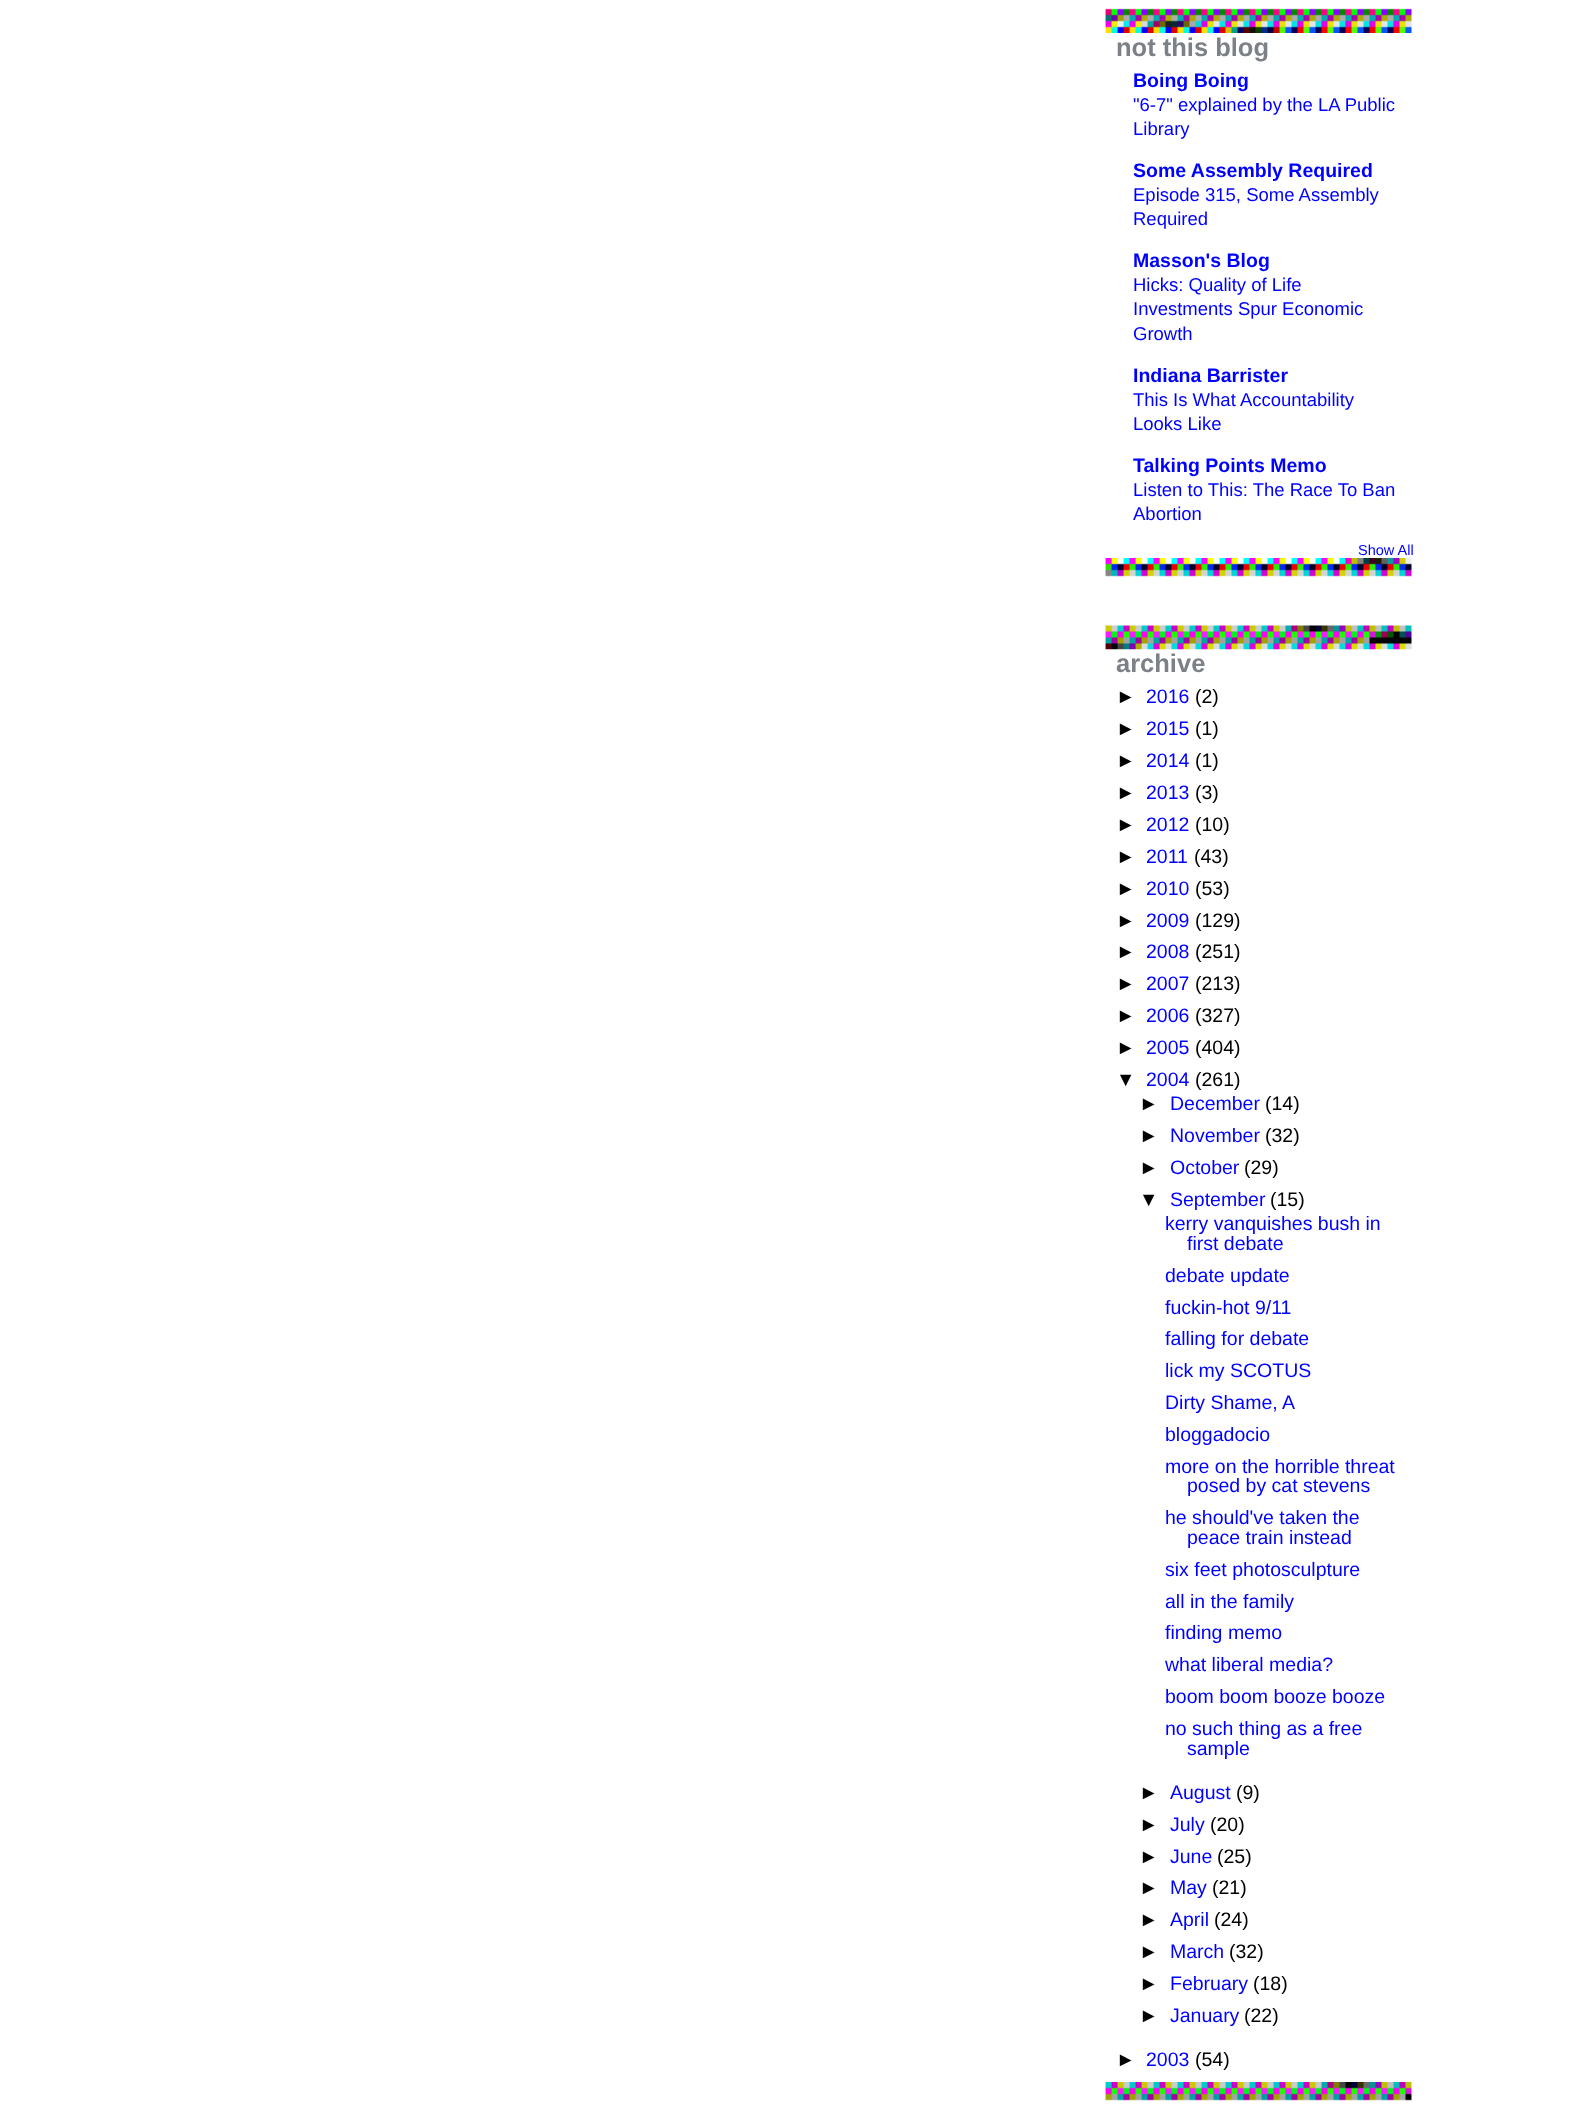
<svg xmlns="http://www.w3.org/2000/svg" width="1591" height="2108">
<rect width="100%" height="100%" fill="#fff"/>
<image x="1105" y="8" width="307" height="25" href="media/1.png"/>
<text x="1116" y="56" style="font-family:Liberation Sans;font-size:25.5px;font-weight:bold;fill:#7b8186">not this blog</text>
<text x="1133" y="87" style="font-family:Liberation Sans;font-size:19.5px;font-weight:bold;fill:#00f">Boing Boing</text>
<text x="1133" y="111" style="font-family:Liberation Sans;font-size:18.5px;fill:#00f">"6-7" explained by the LA Public</text>
<text x="1133" y="135" style="font-family:Liberation Sans;font-size:18.5px;fill:#00f">Library</text>
<text x="1133" y="177" style="font-family:Liberation Sans;font-size:19.5px;font-weight:bold;fill:#00f">Some Assembly Required</text>
<text x="1133" y="201" style="font-family:Liberation Sans;font-size:18.5px;fill:#00f">Episode 315, Some Assembly</text>
<text x="1133" y="225" style="font-family:Liberation Sans;font-size:18.5px;fill:#00f">Required</text>
<text x="1133" y="267" style="font-family:Liberation Sans;font-size:19.5px;font-weight:bold;fill:#00f">Masson's Blog</text>
<text x="1133" y="291" style="font-family:Liberation Sans;font-size:18.5px;fill:#00f">Hicks: Quality of Life</text>
<text x="1133" y="315" style="font-family:Liberation Sans;font-size:18.5px;fill:#00f">Investments Spur Economic</text>
<text x="1133" y="340" style="font-family:Liberation Sans;font-size:18.5px;fill:#00f">Growth</text>
<text x="1133" y="382" style="font-family:Liberation Sans;font-size:19.5px;font-weight:bold;fill:#00f">Indiana Barrister</text>
<text x="1133" y="406" style="font-family:Liberation Sans;font-size:18.5px;fill:#00f">This Is What Accountability</text>
<text x="1133" y="430" style="font-family:Liberation Sans;font-size:18.5px;fill:#00f">Looks Like</text>
<text x="1133" y="472" style="font-family:Liberation Sans;font-size:19.5px;font-weight:bold;fill:#00f">Talking Points Memo</text>
<text x="1133" y="496" style="font-family:Liberation Sans;font-size:18.5px;fill:#00f">Listen to This: The Race To Ban</text>
<text x="1133" y="520" style="font-family:Liberation Sans;font-size:18.5px;fill:#00f">Abortion</text>
<text x="1358" y="555" style="font-family:Liberation Sans;font-size:14.5px;fill:#00f">Show All</text>
<image x="1105" y="558" width="307" height="19" href="media/2.png"/>
<image x="1105" y="625" width="307" height="25" href="media/3.png"/>
<rect x="1105" y="649" width="306" height="1" fill="#ffffff80"/>
<text x="1116" y="672" style="font-family:Liberation Sans;font-size:25.5px;font-weight:bold;fill:#7b8186">archive</text>
<text x="1116" y="703" style="font-family:Liberation Sans;font-size:19.5px;fill:#000">►</text>
<text x="1146" y="703" style="font-family:Liberation Sans;font-size:19.5px;fill:#00f">2016</text>
<text x="1195" y="703" style="font-family:Liberation Sans;font-size:19.5px;fill:#000">(2)</text>
<text x="1116" y="735" style="font-family:Liberation Sans;font-size:19.5px;fill:#000">►</text>
<text x="1146" y="735" style="font-family:Liberation Sans;font-size:19.5px;fill:#00f">2015</text>
<text x="1195" y="735" style="font-family:Liberation Sans;font-size:19.5px;fill:#000">(1)</text>
<text x="1116" y="767" style="font-family:Liberation Sans;font-size:19.5px;fill:#000">►</text>
<text x="1146" y="767" style="font-family:Liberation Sans;font-size:19.5px;fill:#00f">2014</text>
<text x="1195" y="767" style="font-family:Liberation Sans;font-size:19.5px;fill:#000">(1)</text>
<text x="1116" y="799" style="font-family:Liberation Sans;font-size:19.5px;fill:#000">►</text>
<text x="1146" y="799" style="font-family:Liberation Sans;font-size:19.5px;fill:#00f">2013</text>
<text x="1195" y="799" style="font-family:Liberation Sans;font-size:19.5px;fill:#000">(3)</text>
<text x="1116" y="831" style="font-family:Liberation Sans;font-size:19.5px;fill:#000">►</text>
<text x="1146" y="831" style="font-family:Liberation Sans;font-size:19.5px;fill:#00f">2012</text>
<text x="1195" y="831" style="font-family:Liberation Sans;font-size:19.5px;fill:#000">(10)</text>
<text x="1116" y="863" style="font-family:Liberation Sans;font-size:19.5px;fill:#000">►</text>
<text x="1146" y="863" style="font-family:Liberation Sans;font-size:19.5px;fill:#00f">2011</text>
<text x="1194" y="863" style="font-family:Liberation Sans;font-size:19.5px;fill:#000">(43)</text>
<text x="1116" y="895" style="font-family:Liberation Sans;font-size:19.5px;fill:#000">►</text>
<text x="1146" y="895" style="font-family:Liberation Sans;font-size:19.5px;fill:#00f">2010</text>
<text x="1195" y="895" style="font-family:Liberation Sans;font-size:19.5px;fill:#000">(53)</text>
<text x="1116" y="927" style="font-family:Liberation Sans;font-size:19.5px;fill:#000">►</text>
<text x="1146" y="927" style="font-family:Liberation Sans;font-size:19.5px;fill:#00f">2009</text>
<text x="1195" y="927" style="font-family:Liberation Sans;font-size:19.5px;fill:#000">(129)</text>
<text x="1116" y="958" style="font-family:Liberation Sans;font-size:19.5px;fill:#000">►</text>
<text x="1146" y="958" style="font-family:Liberation Sans;font-size:19.5px;fill:#00f">2008</text>
<text x="1195" y="958" style="font-family:Liberation Sans;font-size:19.5px;fill:#000">(251)</text>
<text x="1116" y="990" style="font-family:Liberation Sans;font-size:19.5px;fill:#000">►</text>
<text x="1146" y="990" style="font-family:Liberation Sans;font-size:19.5px;fill:#00f">2007</text>
<text x="1195" y="990" style="font-family:Liberation Sans;font-size:19.5px;fill:#000">(213)</text>
<text x="1116" y="1022" style="font-family:Liberation Sans;font-size:19.5px;fill:#000">►</text>
<text x="1146" y="1022" style="font-family:Liberation Sans;font-size:19.5px;fill:#00f">2006</text>
<text x="1195" y="1022" style="font-family:Liberation Sans;font-size:19.5px;fill:#000">(327)</text>
<text x="1116" y="1054" style="font-family:Liberation Sans;font-size:19.5px;fill:#000">►</text>
<text x="1146" y="1054" style="font-family:Liberation Sans;font-size:19.5px;fill:#00f">2005</text>
<text x="1195" y="1054" style="font-family:Liberation Sans;font-size:19.5px;fill:#000">(404)</text>
<text x="1116" y="1086" style="font-family:Liberation Sans;font-size:19.5px;fill:#000">▼</text>
<text x="1146" y="1086" style="font-family:Liberation Sans;font-size:19.5px;fill:#00f">2004</text>
<text x="1195" y="1086" style="font-family:Liberation Sans;font-size:19.5px;fill:#000">(261)</text>
<text x="1139" y="1110" style="font-family:Liberation Sans;font-size:19.5px;fill:#000">►</text>
<text x="1170" y="1110" style="font-family:Liberation Sans;font-size:19.5px;fill:#00f">December</text>
<text x="1265" y="1110" style="font-family:Liberation Sans;font-size:19.5px;fill:#000">(14)</text>
<text x="1139" y="1142" style="font-family:Liberation Sans;font-size:19.5px;fill:#000">►</text>
<text x="1170" y="1142" style="font-family:Liberation Sans;font-size:19.5px;fill:#00f">November</text>
<text x="1265" y="1142" style="font-family:Liberation Sans;font-size:19.5px;fill:#000">(32)</text>
<text x="1139" y="1174" style="font-family:Liberation Sans;font-size:19.5px;fill:#000">►</text>
<text x="1170" y="1174" style="font-family:Liberation Sans;font-size:19.5px;fill:#00f">October</text>
<text x="1244" y="1174" style="font-family:Liberation Sans;font-size:19.5px;fill:#000">(29)</text>
<text x="1139" y="1206" style="font-family:Liberation Sans;font-size:19.5px;fill:#000">▼</text>
<text x="1170" y="1206" style="font-family:Liberation Sans;font-size:19.5px;fill:#00f">September</text>
<text x="1270" y="1206" style="font-family:Liberation Sans;font-size:19.5px;fill:#000">(15)</text>
<text x="1165" y="1230" style="font-family:Liberation Sans;font-size:19.5px;fill:#00f">kerry vanquishes bush in</text>
<text x="1187" y="1250" style="font-family:Liberation Sans;font-size:19.5px;fill:#00f">first debate</text>
<text x="1165" y="1282" style="font-family:Liberation Sans;font-size:19.5px;fill:#00f">debate update</text>
<text x="1165" y="1314" style="font-family:Liberation Sans;font-size:19.5px;fill:#00f">fuckin-hot 9/11</text>
<text x="1165" y="1345" style="font-family:Liberation Sans;font-size:19.5px;fill:#00f">falling for debate</text>
<text x="1165" y="1377" style="font-family:Liberation Sans;font-size:19.5px;fill:#00f">lick my SCOTUS</text>
<text x="1165" y="1409" style="font-family:Liberation Sans;font-size:19.5px;fill:#00f">Dirty Shame, A</text>
<text x="1165" y="1441" style="font-family:Liberation Sans;font-size:19.5px;fill:#00f">bloggadocio</text>
<text x="1165" y="1473" style="font-family:Liberation Sans;font-size:19.5px;fill:#00f">more on the horrible threat</text>
<text x="1187" y="1492" style="font-family:Liberation Sans;font-size:19.5px;fill:#00f">posed by cat stevens</text>
<text x="1165" y="1524" style="font-family:Liberation Sans;font-size:19.5px;fill:#00f">he should've taken the</text>
<text x="1187" y="1544" style="font-family:Liberation Sans;font-size:19.5px;fill:#00f">peace train instead</text>
<text x="1165" y="1576" style="font-family:Liberation Sans;font-size:19.5px;fill:#00f">six feet photosculpture</text>
<text x="1165" y="1608" style="font-family:Liberation Sans;font-size:19.5px;fill:#00f">all in the family</text>
<text x="1165" y="1639" style="font-family:Liberation Sans;font-size:19.5px;fill:#00f">finding memo</text>
<text x="1165" y="1671" style="font-family:Liberation Sans;font-size:19.5px;fill:#00f">what liberal media?</text>
<text x="1165" y="1703" style="font-family:Liberation Sans;font-size:19.5px;fill:#00f">boom boom booze booze</text>
<text x="1165" y="1735" style="font-family:Liberation Sans;font-size:19.5px;fill:#00f">no such thing as a free</text>
<text x="1187" y="1755" style="font-family:Liberation Sans;font-size:19.5px;fill:#00f">sample</text>
<text x="1139" y="1799" style="font-family:Liberation Sans;font-size:19.5px;fill:#000">►</text>
<text x="1170" y="1799" style="font-family:Liberation Sans;font-size:19.5px;fill:#00f">August</text>
<text x="1236" y="1799" style="font-family:Liberation Sans;font-size:19.5px;fill:#000">(9)</text>
<text x="1139" y="1831" style="font-family:Liberation Sans;font-size:19.5px;fill:#000">►</text>
<text x="1170" y="1831" style="font-family:Liberation Sans;font-size:19.5px;fill:#00f">July</text>
<text x="1210" y="1831" style="font-family:Liberation Sans;font-size:19.5px;fill:#000">(20)</text>
<text x="1139" y="1863" style="font-family:Liberation Sans;font-size:19.5px;fill:#000">►</text>
<text x="1170" y="1863" style="font-family:Liberation Sans;font-size:19.5px;fill:#00f">June</text>
<text x="1217" y="1863" style="font-family:Liberation Sans;font-size:19.5px;fill:#000">(25)</text>
<text x="1139" y="1894" style="font-family:Liberation Sans;font-size:19.5px;fill:#000">►</text>
<text x="1170" y="1894" style="font-family:Liberation Sans;font-size:19.5px;fill:#00f">May</text>
<text x="1212" y="1894" style="font-family:Liberation Sans;font-size:19.5px;fill:#000">(21)</text>
<text x="1139" y="1926" style="font-family:Liberation Sans;font-size:19.5px;fill:#000">►</text>
<text x="1170" y="1926" style="font-family:Liberation Sans;font-size:19.5px;fill:#00f">April</text>
<text x="1214" y="1926" style="font-family:Liberation Sans;font-size:19.5px;fill:#000">(24)</text>
<text x="1139" y="1958" style="font-family:Liberation Sans;font-size:19.5px;fill:#000">►</text>
<text x="1170" y="1958" style="font-family:Liberation Sans;font-size:19.5px;fill:#00f">March</text>
<text x="1229" y="1958" style="font-family:Liberation Sans;font-size:19.5px;fill:#000">(32)</text>
<text x="1139" y="1990" style="font-family:Liberation Sans;font-size:19.5px;fill:#000">►</text>
<text x="1170" y="1990" style="font-family:Liberation Sans;font-size:19.5px;fill:#00f">February</text>
<text x="1253" y="1990" style="font-family:Liberation Sans;font-size:19.5px;fill:#000">(18)</text>
<text x="1139" y="2022" style="font-family:Liberation Sans;font-size:19.5px;fill:#000">►</text>
<text x="1170" y="2022" style="font-family:Liberation Sans;font-size:19.5px;fill:#00f">January</text>
<text x="1244" y="2022" style="font-family:Liberation Sans;font-size:19.5px;fill:#000">(22)</text>
<text x="1116" y="2066" style="font-family:Liberation Sans;font-size:19.5px;fill:#000">►</text>
<text x="1146" y="2066" style="font-family:Liberation Sans;font-size:19.5px;fill:#00f">2003</text>
<text x="1195" y="2066" style="font-family:Liberation Sans;font-size:19.5px;fill:#000">(54)</text>
<image x="1105" y="2082" width="307" height="19" href="media/4.png"/>
</svg>
